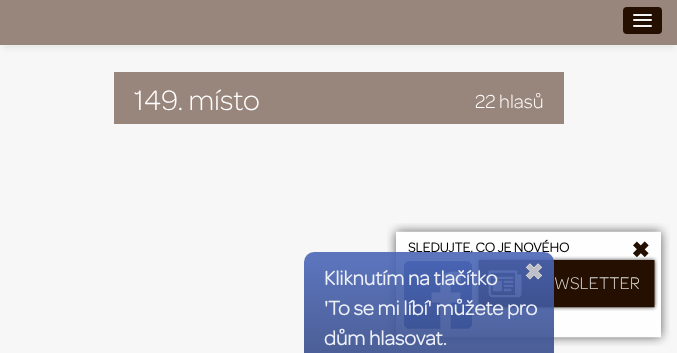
<svg xmlns="http://www.w3.org/2000/svg" width="677" height="353">
<defs>
<linearGradient id="g1" gradientUnits="userSpaceOnUse" x1="429" y1="252" x2="429" y2="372"><stop offset="0.05" stop-color="#4a66b6" stop-opacity="0.9"/><stop offset="1" stop-color="#354984" stop-opacity="0.9"/></linearGradient>
</defs>
<rect width="100%" height="100%" fill="#f7f7f7"/>
<rect x="3" y="10" width="671" height="39" fill="#c4c4c447" filter="blur(2.5px)"/>
<rect width="677" height="45" fill="#98857c"/>
<rect x="623" y="7" width="39" height="27" rx="4" fill="#240f00"/>
<path d="M633 15.5c-1 2 4 1.5 4 1.5h11c0 0 5 .5 4-1.5l-1 .5h-17z" fill="#1b0b00"/>
<rect x="633" y="14" width="19" height="2" rx="1" fill="#f5f5f5"/>
<path d="M633 20.5c-1 2 4 1.5 4 1.5h11c0 0 5 .5 4-1.5l-1 .5h-17z" fill="#1b0b00"/>
<rect x="633" y="19" width="19" height="2" rx="1" fill="#f5f5f5"/>
<path d="M633 26.5c-1 2 4 1.5 4 1.5h11c0 0 5 .5 4-1.5l-1 .5h-17z" fill="#1b0b00"/>
<rect x="633" y="25" width="19" height="2" rx="1" fill="#f5f5f5"/>
<rect x="114" y="72" width="450" height="52" fill="#98857c"/>
<text x="134" y="110" style="font-family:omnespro;font-size:30px;fill:#fff">149. místo</text>
<text x="475" y="108" style="font-family:omnespro;font-size:20px;fill:#fff">22 hlasů</text>
<image x="387" y="223" width="283" height="123" href="media/2.png"/>
<text x="408" y="252" style="font-family:omnespro;font-size:14px;font-weight:bold;fill:#000">SLEDUJTE, CO JE NOVÉHO</text>
<image x="404" y="261" width="68" height="68" href="media/3.png"/>
<image x="475" y="256" width="183" height="55" href="media/4.png"/>
<rect x="304" y="252" width="250" height="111" rx="10" fill="url(#g1)"/>
<text x="324" y="285" style="font-family:omnespro;font-size:21px;font-weight:bold;fill:#eef0f7">Kliknutím na tlačítko</text>
<image x="525" y="263" width="18" height="17" href="media/1.png"/>
<text x="324" y="315" style="font-family:omnespro;font-size:21px;font-weight:bold;fill:#eef0f7">'To se mi líbí' můžete pro</text>
<text x="324" y="345" style="font-family:omnespro;font-size:21px;font-weight:bold;fill:#eef0f7">dům hlasovat.</text>
<text x="554" y="289" style="font-family:omnespro;font-size:18px;fill:#dad7d4">WSLETTER</text>
</svg>
